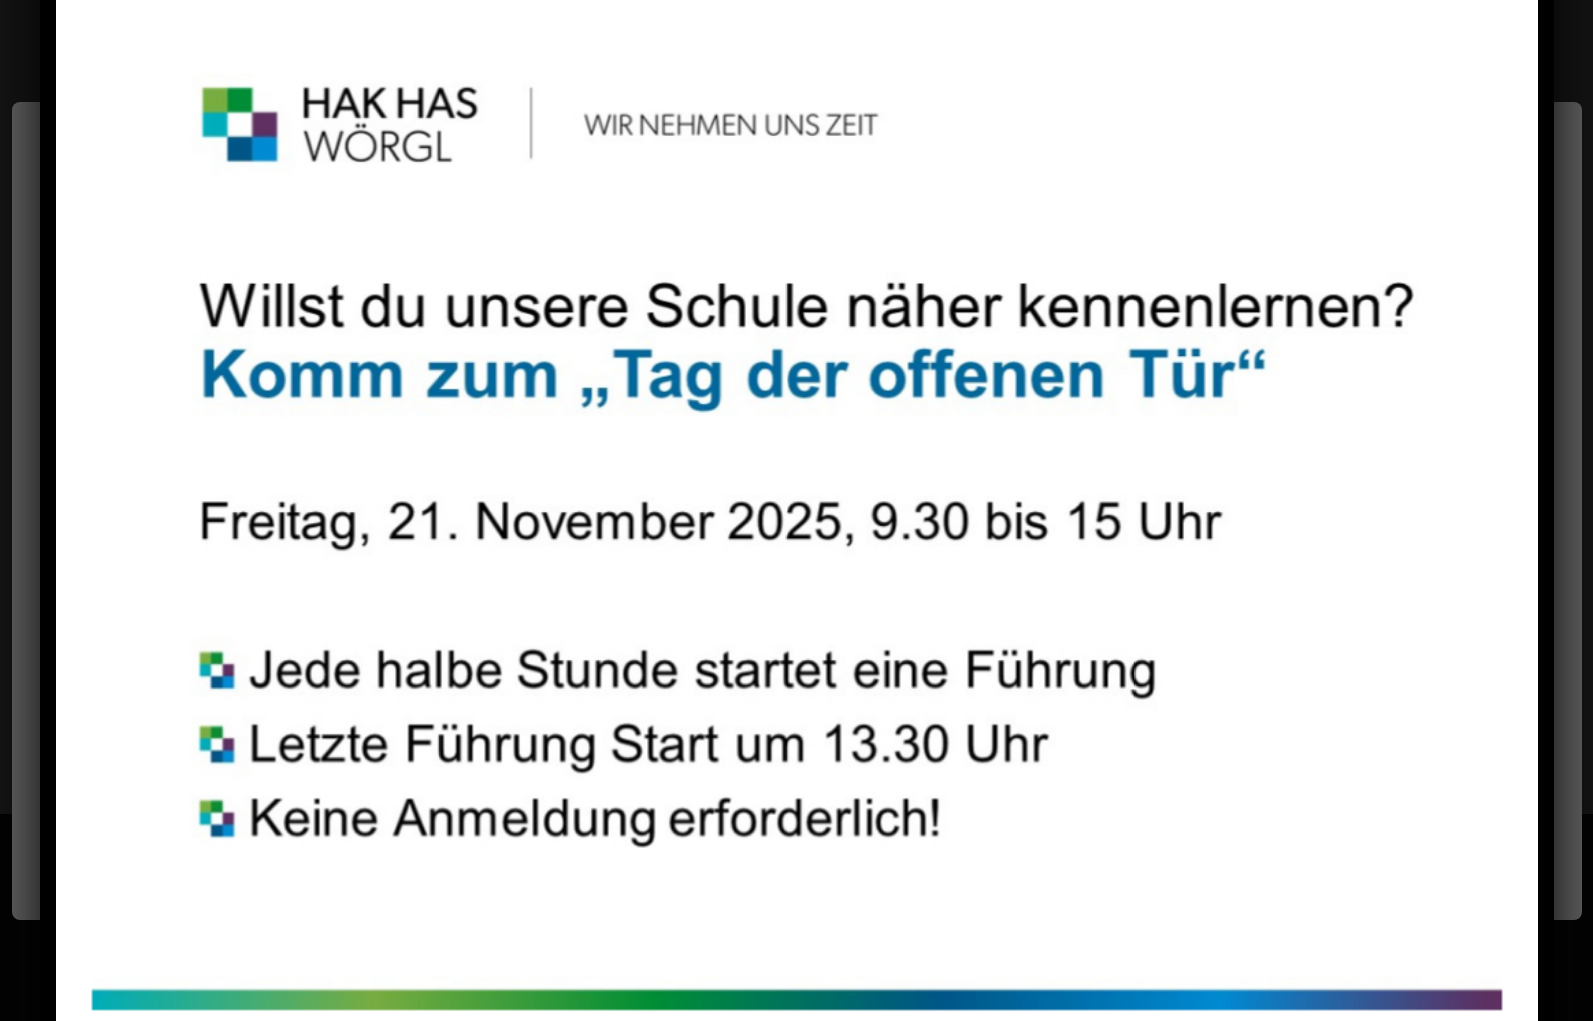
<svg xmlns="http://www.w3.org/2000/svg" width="1593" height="1021">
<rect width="100%" height="100%" fill="#141414"/>
<rect y="814" width="1593" height="207" fill="#030303"/>
<rect x="12" y="102" width="1570" height="818" rx="8" fill="#666"/>
<rect x="40" y="-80" width="1514" height="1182" rx="6" fill="#020202" filter="blur(30px)"/>
<rect x="56" width="1482" height="1021" fill="#fff"/>
<path d="M48-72h1498v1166h-1498z" fill="none" stroke="#000" stroke-width="16"/>
<image x="91" y="73" width="1412" height="938" href="media/1.png"/>
</svg>
